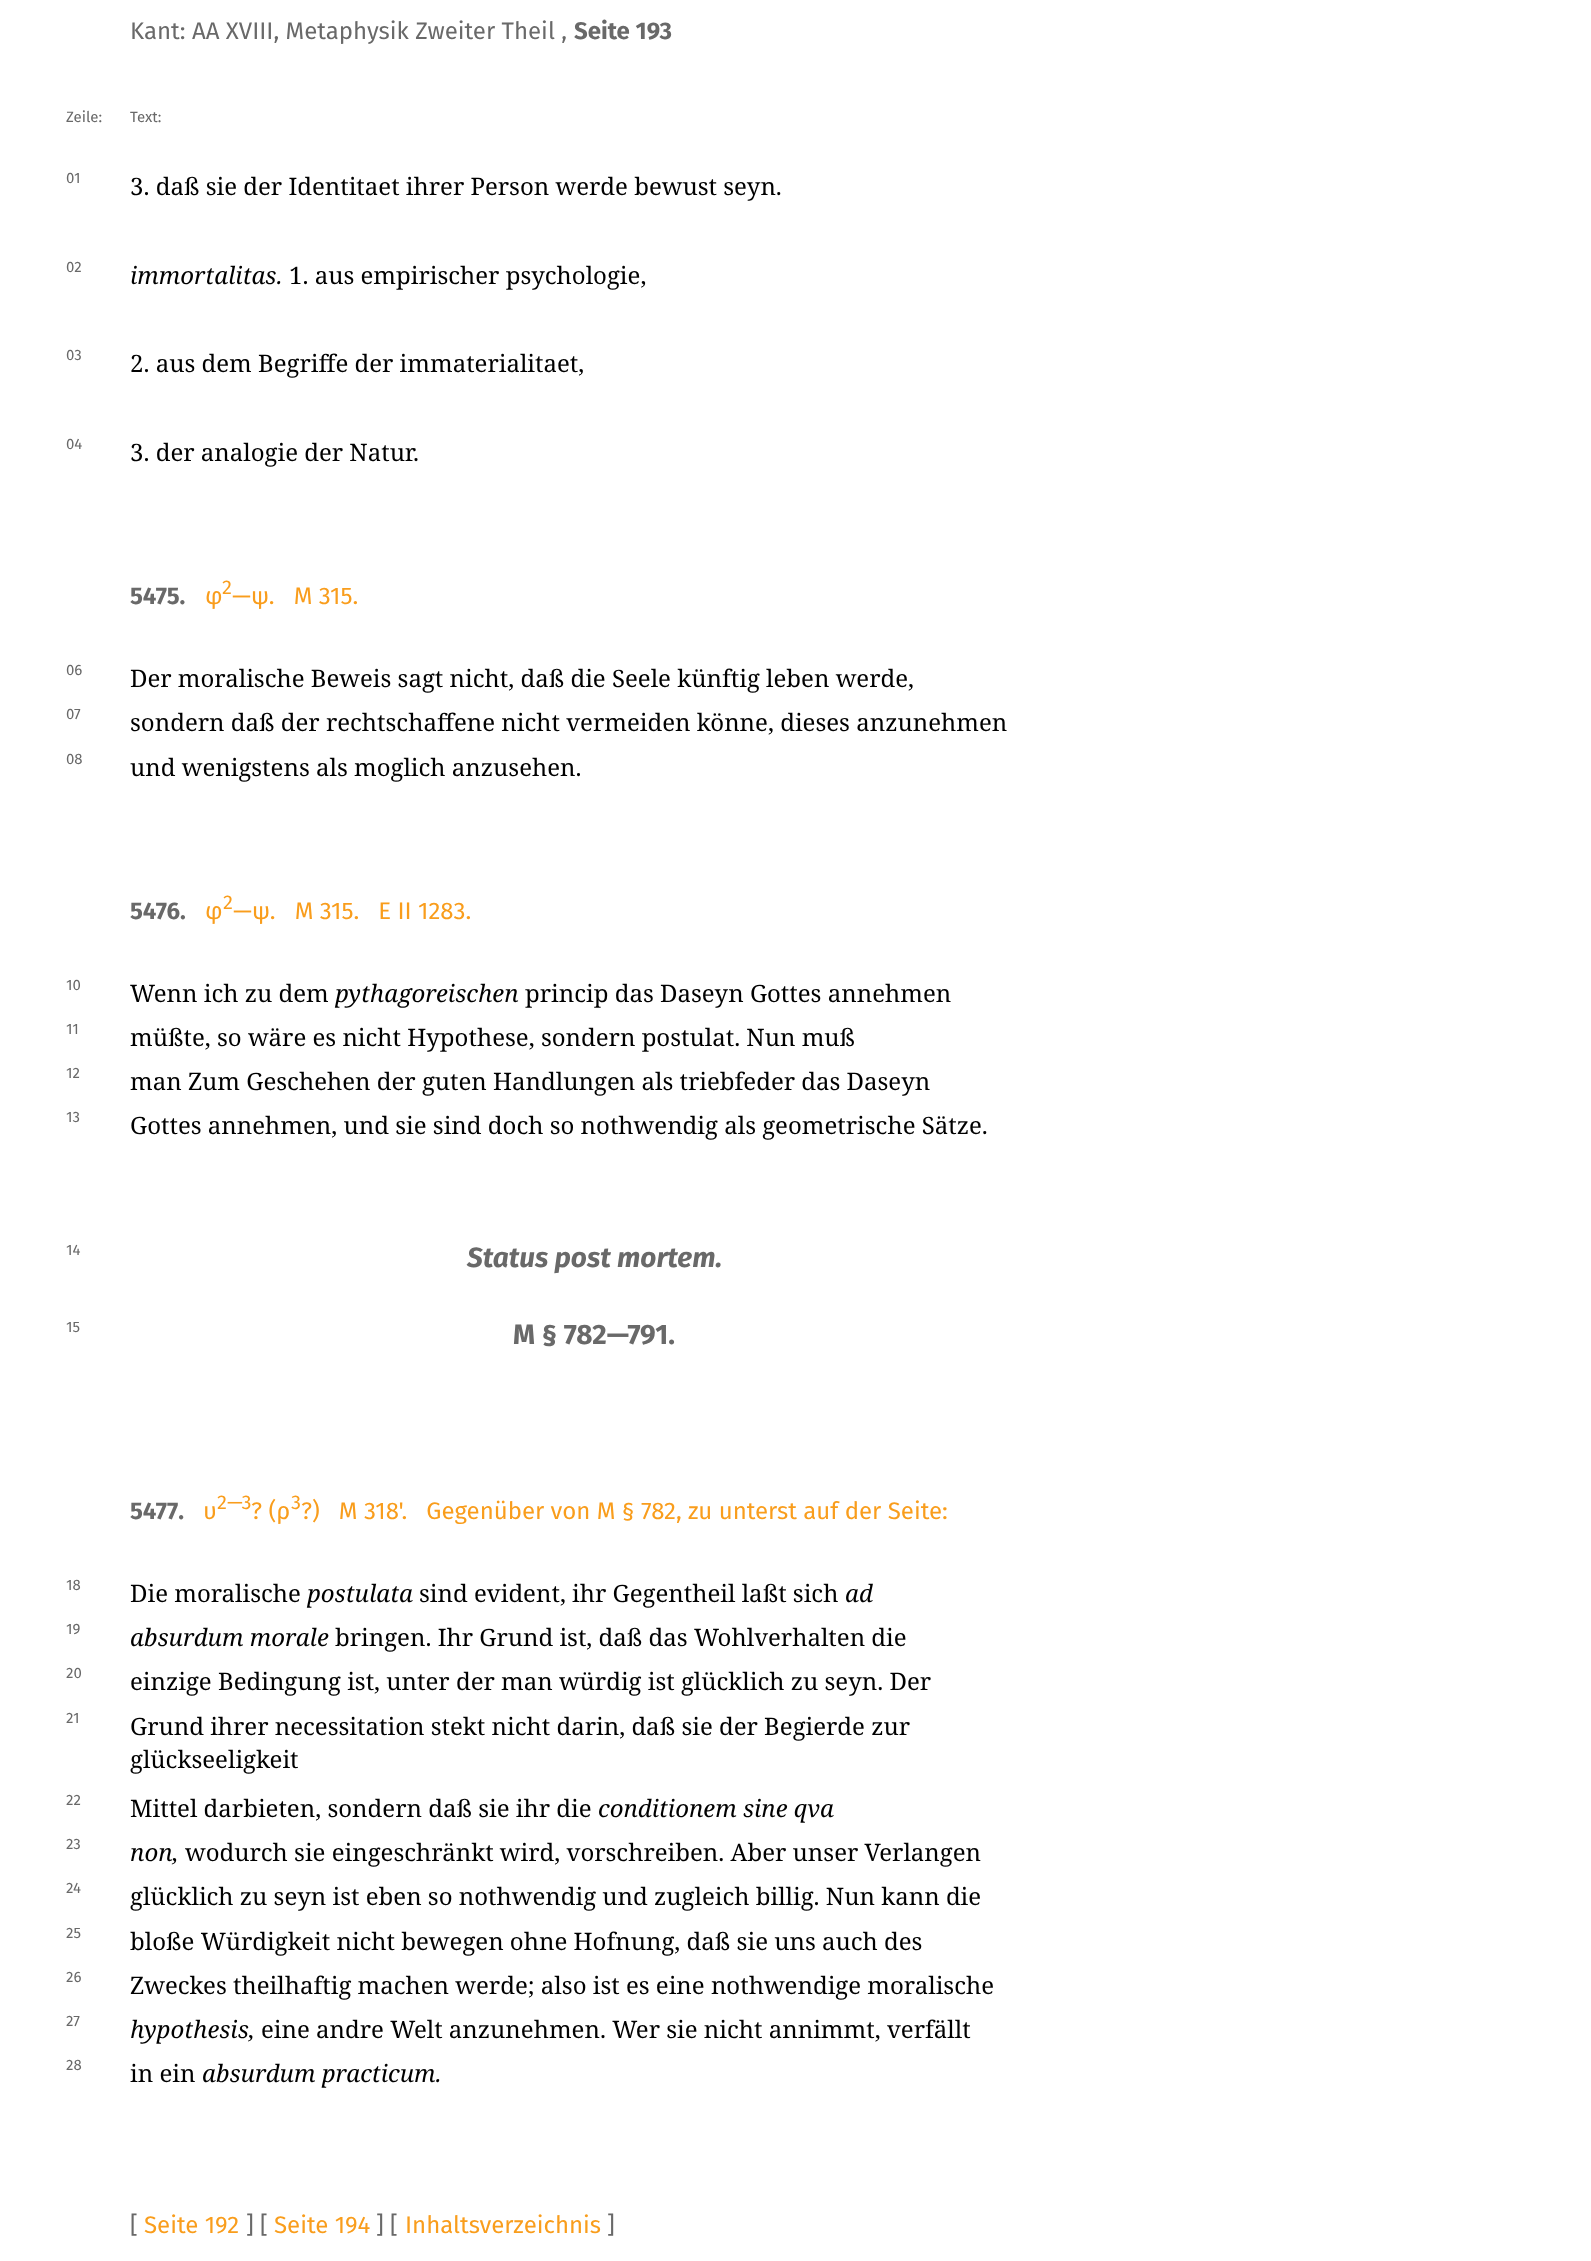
<svg xmlns="http://www.w3.org/2000/svg" width="1591" height="2261">
<rect width="100%" height="100%" fill="#fff"/>
<text x="130" y="39" style="font-family:Fira Sans;font-size:24px;fill:#696969">Kant: AA XVIII, Metaphysik Zweiter Theil ,</text>
<text x="574" y="39" style="font-family:Fira Sans;font-size:24px;font-weight:bold;fill:#696969">Seite 193</text>
<text x="66" y="122" style="font-family:Fira Sans;font-size:15px;fill:#696969">Zeile:</text>
<text x="130" y="122" style="font-family:Fira Sans;font-size:15px;fill:#696969">Text:</text>
<text x="66" y="183" style="font-family:Fira Sans;font-size:15px;fill:#696969">01</text>
<text x="130" y="195" style="font-family:Noto Serif;font-size:24px;fill:#000">3. daß sie der Identitaet ihrer Person werde bewust seyn.</text>
<text x="66" y="272" style="font-family:Fira Sans;font-size:15px;fill:#696969">02</text>
<text x="130" y="284" style="font-family:Noto Serif;font-size:24px;font-style:italic;fill:#000">immortalitas.</text>
<text x="289" y="284" style="font-family:Noto Serif;font-size:24px;fill:#000">1. aus empirischer psychologie,</text>
<text x="66" y="360" style="font-family:Fira Sans;font-size:15px;fill:#696969">03</text>
<text x="130" y="372" style="font-family:Noto Serif;font-size:24px;fill:#000">2. aus dem Begriffe der immaterialitaet,</text>
<text x="66" y="449" style="font-family:Fira Sans;font-size:15px;fill:#696969">04</text>
<text x="130" y="461" style="font-family:Noto Serif;font-size:24px;fill:#000">3. der analogie der Natur.</text>
<text x="130" y="604" style="font-family:Fira Sans;font-size:24px;font-weight:bold;fill:#696969">5475.</text>
<text x="205" y="604" style="font-family:Fira Sans;font-size:24px;fill:#f99d1c">φ</text>
<text x="222" y="594" style="font-family:Fira Sans;font-size:20px;fill:#f99d1c">2</text>
<text x="232" y="604" style="font-family:Fira Sans;font-size:24px;fill:#f99d1c" xml:space="preserve">—ψ.   M 315.</text>
<text x="66" y="675" style="font-family:Fira Sans;font-size:15px;fill:#696969">06</text>
<text x="130" y="687" style="font-family:Noto Serif;font-size:24px;fill:#000">Der moralische Beweis sagt nicht, daß die Seele künftig leben werde,</text>
<text x="66" y="719" style="font-family:Fira Sans;font-size:15px;fill:#696969">07</text>
<text x="130" y="731" style="font-family:Noto Serif;font-size:24px;fill:#000">sondern daß der rechtschaffene nicht vermeiden könne, dieses anzunehmen</text>
<text x="66" y="764" style="font-family:Fira Sans;font-size:15px;fill:#696969">08</text>
<text x="130" y="776" style="font-family:Noto Serif;font-size:24px;fill:#000">und wenigstens als moglich anzusehen.</text>
<text x="130" y="919" style="font-family:Fira Sans;font-size:24px;font-weight:bold;fill:#696969">5476.</text>
<text x="205" y="919" style="font-family:Fira Sans;font-size:24px;fill:#f99d1c">φ</text>
<text x="223" y="909" style="font-family:Fira Sans;font-size:20px;fill:#f99d1c">2</text>
<text x="233" y="919" style="font-family:Fira Sans;font-size:24px;fill:#f99d1c" xml:space="preserve">—ψ.   M 315.   E II 1283.</text>
<text x="66" y="990" style="font-family:Fira Sans;font-size:15px;fill:#696969">10</text>
<text x="130" y="1002" style="font-family:Noto Serif;font-size:24px;fill:#000">Wenn ich zu dem</text>
<text x="335" y="1002" style="font-family:Noto Serif;font-size:24px;font-style:italic;fill:#000">pythagoreischen</text>
<text x="525" y="1002" style="font-family:Noto Serif;font-size:24px;fill:#000">princip das Daseyn Gottes annehmen</text>
<text x="66" y="1034" style="font-family:Fira Sans;font-size:15px;fill:#696969">11</text>
<text x="130" y="1046" style="font-family:Noto Serif;font-size:24px;fill:#000">müßte, so wäre es nicht Hypothese, sondern postulat. Nun muß</text>
<text x="66" y="1078" style="font-family:Fira Sans;font-size:15px;fill:#696969">12</text>
<text x="130" y="1090" style="font-family:Noto Serif;font-size:24px;fill:#000">man Zum Geschehen der guten Handlungen als triebfeder das Daseyn</text>
<text x="66" y="1122" style="font-family:Fira Sans;font-size:15px;fill:#696969">13</text>
<text x="130" y="1134" style="font-family:Noto Serif;font-size:24px;fill:#000">Gottes annehmen, und sie sind doch so nothwendig als geometrische Sätze.</text>
<text x="66" y="1255" style="font-family:Fira Sans;font-size:15px;fill:#696969">14</text>
<text x="467" y="1267" style="font-family:Fira Sans;font-size:28px;font-weight:bold;font-style:italic;fill:#696969">Status post mortem.</text>
<text x="66" y="1332" style="font-family:Fira Sans;font-size:15px;fill:#696969">15</text>
<text x="513" y="1344" style="font-family:Fira Sans;font-size:28px;font-weight:bold;fill:#696969">M § 782—791.</text>
<text x="130" y="1519" style="font-family:Fira Sans;font-size:24px;font-weight:bold;fill:#696969">5477.</text>
<text x="203" y="1519" style="font-family:Fira Sans;font-size:24px;fill:#f99d1c">υ</text>
<text x="217" y="1509" style="font-family:Fira Sans;font-size:20px;fill:#f99d1c">2—3</text>
<text x="251" y="1519" style="font-family:Fira Sans;font-size:24px;fill:#f99d1c">? (ρ</text>
<text x="291" y="1509" style="font-family:Fira Sans;font-size:20px;fill:#f99d1c">3</text>
<text x="301" y="1519" style="font-family:Fira Sans;font-size:24px;fill:#f99d1c" xml:space="preserve">?)   M 318'.   Gegenüber von M § 782, zu unterst auf der Seite:</text>
<text x="66" y="1590" style="font-family:Fira Sans;font-size:15px;fill:#696969">18</text>
<text x="130" y="1602" style="font-family:Noto Serif;font-size:24px;fill:#000">Die moralische</text>
<text x="307" y="1602" style="font-family:Noto Serif;font-size:24px;font-style:italic;fill:#000">postulata</text>
<text x="419" y="1602" style="font-family:Noto Serif;font-size:24px;fill:#000">sind evident, ihr Gegentheil laßt sich</text>
<text x="845" y="1602" style="font-family:Noto Serif;font-size:24px;font-style:italic;fill:#000">ad</text>
<text x="66" y="1634" style="font-family:Fira Sans;font-size:15px;fill:#696969">19</text>
<text x="130" y="1646" style="font-family:Noto Serif;font-size:24px;font-style:italic;fill:#000">absurdum morale</text>
<text x="335" y="1646" style="font-family:Noto Serif;font-size:24px;fill:#000">bringen. Ihr Grund ist, daß das Wohlverhalten die</text>
<text x="66" y="1678" style="font-family:Fira Sans;font-size:15px;fill:#696969">20</text>
<text x="130" y="1690" style="font-family:Noto Serif;font-size:24px;fill:#000">einzige Bedingung ist, unter der man würdig ist glücklich zu seyn. Der</text>
<text x="66" y="1723" style="font-family:Fira Sans;font-size:15px;fill:#696969">21</text>
<text x="130" y="1735" style="font-family:Noto Serif;font-size:24px;fill:#000">Grund ihrer necessitation stekt nicht darin, daß sie der Begierde zur</text>
<text x="130" y="1768" style="font-family:Noto Serif;font-size:24px;fill:#000">glückseeligkeit</text>
<text x="66" y="1805" style="font-family:Fira Sans;font-size:15px;fill:#696969">22</text>
<text x="130" y="1817" style="font-family:Noto Serif;font-size:24px;fill:#000">Mittel darbieten, sondern daß sie ihr die</text>
<text x="598" y="1817" style="font-family:Noto Serif;font-size:24px;font-style:italic;fill:#000">conditionem sine qva</text>
<text x="66" y="1849" style="font-family:Fira Sans;font-size:15px;fill:#696969">23</text>
<text x="130" y="1861" style="font-family:Noto Serif;font-size:24px;font-style:italic;fill:#000">non,</text>
<text x="185" y="1861" style="font-family:Noto Serif;font-size:24px;fill:#000">wodurch sie eingeschränkt wird, vorschreiben. Aber unser Verlangen</text>
<text x="66" y="1893" style="font-family:Fira Sans;font-size:15px;fill:#696969">24</text>
<text x="130" y="1905" style="font-family:Noto Serif;font-size:24px;fill:#000">glücklich zu seyn ist eben so nothwendig und zugleich billig. Nun kann die</text>
<text x="66" y="1938" style="font-family:Fira Sans;font-size:15px;fill:#696969">25</text>
<text x="130" y="1950" style="font-family:Noto Serif;font-size:24px;fill:#000">bloße Würdigkeit nicht bewegen ohne Hofnung, daß sie uns auch des</text>
<text x="66" y="1982" style="font-family:Fira Sans;font-size:15px;fill:#696969">26</text>
<text x="130" y="1994" style="font-family:Noto Serif;font-size:24px;fill:#000">Zweckes theilhaftig machen werde; also ist es eine nothwendige moralische</text>
<text x="66" y="2026" style="font-family:Fira Sans;font-size:15px;fill:#696969">27</text>
<text x="130" y="2038" style="font-family:Noto Serif;font-size:24px;font-style:italic;fill:#000">hypothesis,</text>
<text x="261" y="2038" style="font-family:Noto Serif;font-size:24px;fill:#000">eine andre Welt anzunehmen. Wer sie nicht annimmt, verfällt</text>
<text x="66" y="2070" style="font-family:Fira Sans;font-size:15px;fill:#696969">28</text>
<text x="130" y="2082" style="font-family:Noto Serif;font-size:24px;fill:#000">in ein</text>
<text x="202" y="2082" style="font-family:Noto Serif;font-size:24px;font-style:italic;fill:#000">absurdum practicum.</text>
<text x="130" y="2233" style="font-family:Fira Sans;font-size:24px;fill:#696969">[</text>
<text x="144" y="2233" style="font-family:Fira Sans;font-size:24px;fill:#f99d1c">Seite 192</text>
<text x="246" y="2233" style="font-family:Fira Sans;font-size:24px;fill:#696969">] [</text>
<text x="274" y="2233" style="font-family:Fira Sans;font-size:24px;fill:#f99d1c">Seite 194</text>
<text x="376" y="2233" style="font-family:Fira Sans;font-size:24px;fill:#696969">] [</text>
<text x="405" y="2233" style="font-family:Fira Sans;font-size:24px;fill:#f99d1c">Inhaltsverzeichnis</text>
<text x="607" y="2233" style="font-family:Fira Sans;font-size:24px;fill:#696969">]</text>
</svg>
